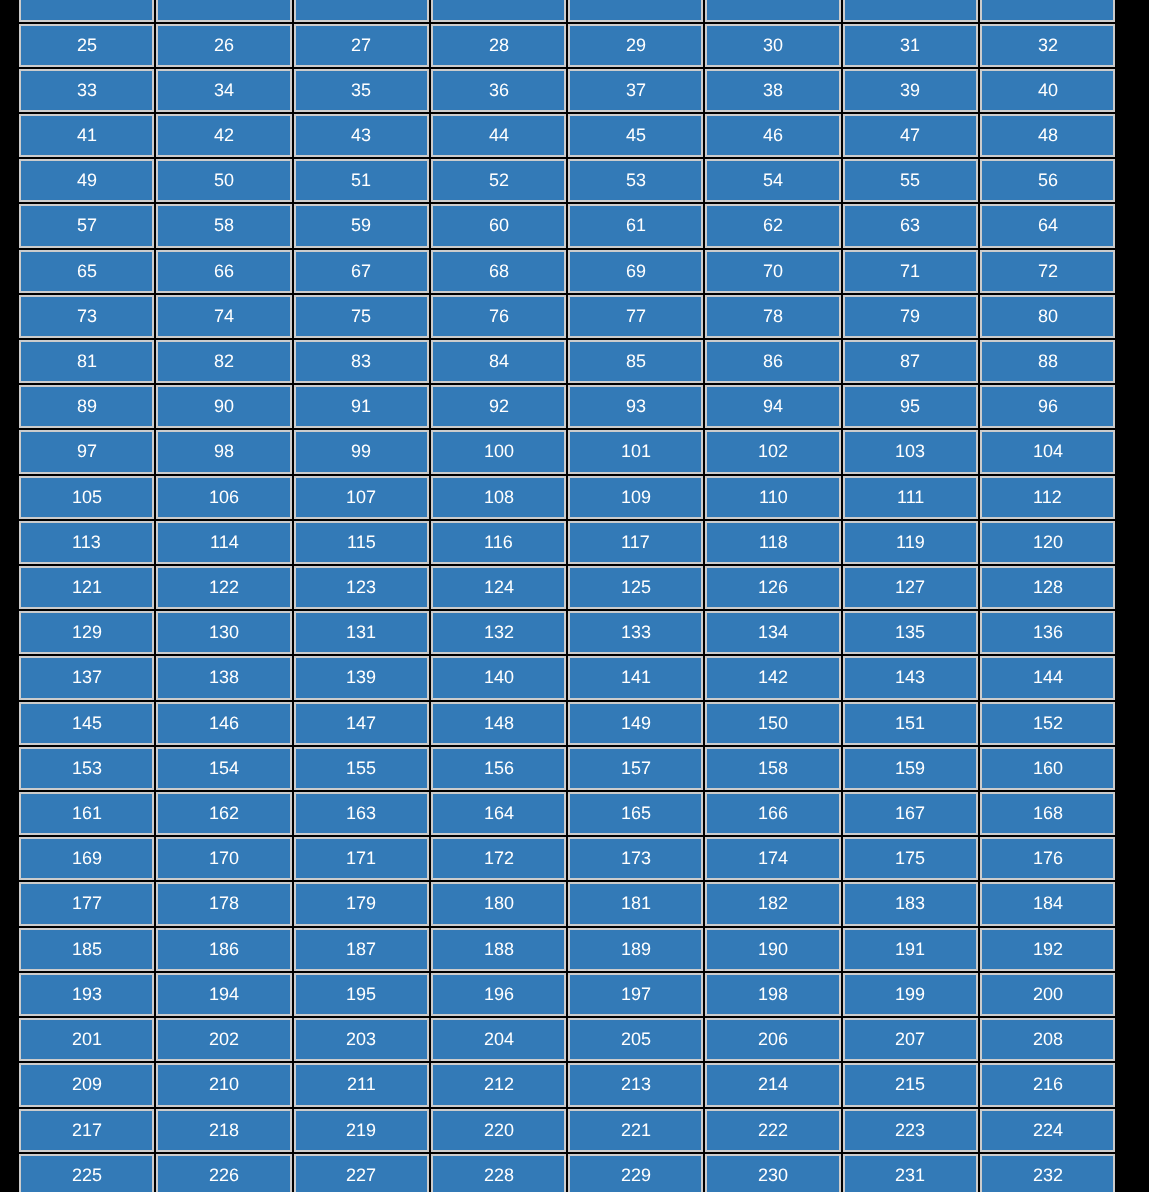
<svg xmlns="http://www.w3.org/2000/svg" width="1149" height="1192">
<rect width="100%" height="100%" fill="#000"/>
<rect x="20" y="-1" width="133" height="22" fill="#337ab7" stroke="#ccc" stroke-width="2"/>
<rect x="157" y="-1" width="134" height="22" fill="#337ab7" stroke="#ccc" stroke-width="2"/>
<rect x="295" y="-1" width="133" height="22" fill="#337ab7" stroke="#ccc" stroke-width="2"/>
<rect x="432" y="-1" width="133" height="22" fill="#337ab7" stroke="#ccc" stroke-width="2"/>
<rect x="569" y="-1" width="133" height="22" fill="#337ab7" stroke="#ccc" stroke-width="2"/>
<rect x="706" y="-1" width="134" height="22" fill="#337ab7" stroke="#ccc" stroke-width="2"/>
<rect x="844" y="-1" width="133" height="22" fill="#337ab7" stroke="#ccc" stroke-width="2"/>
<rect x="981" y="-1" width="133" height="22" fill="#337ab7" stroke="#ccc" stroke-width="2"/>
<rect x="20" y="25" width="133" height="41" fill="#337ab7" stroke="#ccc" stroke-width="2"/>
<text x="77" y="51" style="font-family:Liberation Sans;font-size:18px;fill:#fff">25</text>
<rect x="157" y="25" width="134" height="41" fill="#337ab7" stroke="#ccc" stroke-width="2"/>
<text x="214" y="51" style="font-family:Liberation Sans;font-size:18px;fill:#fff">26</text>
<rect x="295" y="25" width="133" height="41" fill="#337ab7" stroke="#ccc" stroke-width="2"/>
<text x="351" y="51" style="font-family:Liberation Sans;font-size:18px;fill:#fff">27</text>
<rect x="432" y="25" width="133" height="41" fill="#337ab7" stroke="#ccc" stroke-width="2"/>
<text x="489" y="51" style="font-family:Liberation Sans;font-size:18px;fill:#fff">28</text>
<rect x="569" y="25" width="133" height="41" fill="#337ab7" stroke="#ccc" stroke-width="2"/>
<text x="626" y="51" style="font-family:Liberation Sans;font-size:18px;fill:#fff">29</text>
<rect x="706" y="25" width="134" height="41" fill="#337ab7" stroke="#ccc" stroke-width="2"/>
<text x="763" y="51" style="font-family:Liberation Sans;font-size:18px;fill:#fff">30</text>
<rect x="844" y="25" width="133" height="41" fill="#337ab7" stroke="#ccc" stroke-width="2"/>
<text x="900" y="51" style="font-family:Liberation Sans;font-size:18px;fill:#fff">31</text>
<rect x="981" y="25" width="133" height="41" fill="#337ab7" stroke="#ccc" stroke-width="2"/>
<text x="1038" y="51" style="font-family:Liberation Sans;font-size:18px;fill:#fff">32</text>
<rect x="20" y="70" width="133" height="41" fill="#337ab7" stroke="#ccc" stroke-width="2"/>
<text x="77" y="96" style="font-family:Liberation Sans;font-size:18px;fill:#fff">33</text>
<rect x="157" y="70" width="134" height="41" fill="#337ab7" stroke="#ccc" stroke-width="2"/>
<text x="214" y="96" style="font-family:Liberation Sans;font-size:18px;fill:#fff">34</text>
<rect x="295" y="70" width="133" height="41" fill="#337ab7" stroke="#ccc" stroke-width="2"/>
<text x="351" y="96" style="font-family:Liberation Sans;font-size:18px;fill:#fff">35</text>
<rect x="432" y="70" width="133" height="41" fill="#337ab7" stroke="#ccc" stroke-width="2"/>
<text x="489" y="96" style="font-family:Liberation Sans;font-size:18px;fill:#fff">36</text>
<rect x="569" y="70" width="133" height="41" fill="#337ab7" stroke="#ccc" stroke-width="2"/>
<text x="626" y="96" style="font-family:Liberation Sans;font-size:18px;fill:#fff">37</text>
<rect x="706" y="70" width="134" height="41" fill="#337ab7" stroke="#ccc" stroke-width="2"/>
<text x="763" y="96" style="font-family:Liberation Sans;font-size:18px;fill:#fff">38</text>
<rect x="844" y="70" width="133" height="41" fill="#337ab7" stroke="#ccc" stroke-width="2"/>
<text x="900" y="96" style="font-family:Liberation Sans;font-size:18px;fill:#fff">39</text>
<rect x="981" y="70" width="133" height="41" fill="#337ab7" stroke="#ccc" stroke-width="2"/>
<text x="1038" y="96" style="font-family:Liberation Sans;font-size:18px;fill:#fff">40</text>
<rect x="20" y="115" width="133" height="41" fill="#337ab7" stroke="#ccc" stroke-width="2"/>
<text x="77" y="141" style="font-family:Liberation Sans;font-size:18px;fill:#fff">41</text>
<rect x="157" y="115" width="134" height="41" fill="#337ab7" stroke="#ccc" stroke-width="2"/>
<text x="214" y="141" style="font-family:Liberation Sans;font-size:18px;fill:#fff">42</text>
<rect x="295" y="115" width="133" height="41" fill="#337ab7" stroke="#ccc" stroke-width="2"/>
<text x="351" y="141" style="font-family:Liberation Sans;font-size:18px;fill:#fff">43</text>
<rect x="432" y="115" width="133" height="41" fill="#337ab7" stroke="#ccc" stroke-width="2"/>
<text x="489" y="141" style="font-family:Liberation Sans;font-size:18px;fill:#fff">44</text>
<rect x="569" y="115" width="133" height="41" fill="#337ab7" stroke="#ccc" stroke-width="2"/>
<text x="626" y="141" style="font-family:Liberation Sans;font-size:18px;fill:#fff">45</text>
<rect x="706" y="115" width="134" height="41" fill="#337ab7" stroke="#ccc" stroke-width="2"/>
<text x="763" y="141" style="font-family:Liberation Sans;font-size:18px;fill:#fff">46</text>
<rect x="844" y="115" width="133" height="41" fill="#337ab7" stroke="#ccc" stroke-width="2"/>
<text x="900" y="141" style="font-family:Liberation Sans;font-size:18px;fill:#fff">47</text>
<rect x="981" y="115" width="133" height="41" fill="#337ab7" stroke="#ccc" stroke-width="2"/>
<text x="1038" y="141" style="font-family:Liberation Sans;font-size:18px;fill:#fff">48</text>
<rect x="20" y="160" width="133" height="41" fill="#337ab7" stroke="#ccc" stroke-width="2"/>
<text x="77" y="186" style="font-family:Liberation Sans;font-size:18px;fill:#fff">49</text>
<rect x="157" y="160" width="134" height="41" fill="#337ab7" stroke="#ccc" stroke-width="2"/>
<text x="214" y="186" style="font-family:Liberation Sans;font-size:18px;fill:#fff">50</text>
<rect x="295" y="160" width="133" height="41" fill="#337ab7" stroke="#ccc" stroke-width="2"/>
<text x="351" y="186" style="font-family:Liberation Sans;font-size:18px;fill:#fff">51</text>
<rect x="432" y="160" width="133" height="41" fill="#337ab7" stroke="#ccc" stroke-width="2"/>
<text x="489" y="186" style="font-family:Liberation Sans;font-size:18px;fill:#fff">52</text>
<rect x="569" y="160" width="133" height="41" fill="#337ab7" stroke="#ccc" stroke-width="2"/>
<text x="626" y="186" style="font-family:Liberation Sans;font-size:18px;fill:#fff">53</text>
<rect x="706" y="160" width="134" height="41" fill="#337ab7" stroke="#ccc" stroke-width="2"/>
<text x="763" y="186" style="font-family:Liberation Sans;font-size:18px;fill:#fff">54</text>
<rect x="844" y="160" width="133" height="41" fill="#337ab7" stroke="#ccc" stroke-width="2"/>
<text x="900" y="186" style="font-family:Liberation Sans;font-size:18px;fill:#fff">55</text>
<rect x="981" y="160" width="133" height="41" fill="#337ab7" stroke="#ccc" stroke-width="2"/>
<text x="1038" y="186" style="font-family:Liberation Sans;font-size:18px;fill:#fff">56</text>
<rect x="20" y="205" width="133" height="42" fill="#337ab7" stroke="#ccc" stroke-width="2"/>
<text x="77" y="231" style="font-family:Liberation Sans;font-size:18px;fill:#fff">57</text>
<rect x="157" y="205" width="134" height="42" fill="#337ab7" stroke="#ccc" stroke-width="2"/>
<text x="214" y="231" style="font-family:Liberation Sans;font-size:18px;fill:#fff">58</text>
<rect x="295" y="205" width="133" height="42" fill="#337ab7" stroke="#ccc" stroke-width="2"/>
<text x="351" y="231" style="font-family:Liberation Sans;font-size:18px;fill:#fff">59</text>
<rect x="432" y="205" width="133" height="42" fill="#337ab7" stroke="#ccc" stroke-width="2"/>
<text x="489" y="231" style="font-family:Liberation Sans;font-size:18px;fill:#fff">60</text>
<rect x="569" y="205" width="133" height="42" fill="#337ab7" stroke="#ccc" stroke-width="2"/>
<text x="626" y="231" style="font-family:Liberation Sans;font-size:18px;fill:#fff">61</text>
<rect x="706" y="205" width="134" height="42" fill="#337ab7" stroke="#ccc" stroke-width="2"/>
<text x="763" y="231" style="font-family:Liberation Sans;font-size:18px;fill:#fff">62</text>
<rect x="844" y="205" width="133" height="42" fill="#337ab7" stroke="#ccc" stroke-width="2"/>
<text x="900" y="231" style="font-family:Liberation Sans;font-size:18px;fill:#fff">63</text>
<rect x="981" y="205" width="133" height="42" fill="#337ab7" stroke="#ccc" stroke-width="2"/>
<text x="1038" y="231" style="font-family:Liberation Sans;font-size:18px;fill:#fff">64</text>
<rect x="20" y="251" width="133" height="41" fill="#337ab7" stroke="#ccc" stroke-width="2"/>
<text x="77" y="277" style="font-family:Liberation Sans;font-size:18px;fill:#fff">65</text>
<rect x="157" y="251" width="134" height="41" fill="#337ab7" stroke="#ccc" stroke-width="2"/>
<text x="214" y="277" style="font-family:Liberation Sans;font-size:18px;fill:#fff">66</text>
<rect x="295" y="251" width="133" height="41" fill="#337ab7" stroke="#ccc" stroke-width="2"/>
<text x="351" y="277" style="font-family:Liberation Sans;font-size:18px;fill:#fff">67</text>
<rect x="432" y="251" width="133" height="41" fill="#337ab7" stroke="#ccc" stroke-width="2"/>
<text x="489" y="277" style="font-family:Liberation Sans;font-size:18px;fill:#fff">68</text>
<rect x="569" y="251" width="133" height="41" fill="#337ab7" stroke="#ccc" stroke-width="2"/>
<text x="626" y="277" style="font-family:Liberation Sans;font-size:18px;fill:#fff">69</text>
<rect x="706" y="251" width="134" height="41" fill="#337ab7" stroke="#ccc" stroke-width="2"/>
<text x="763" y="277" style="font-family:Liberation Sans;font-size:18px;fill:#fff">70</text>
<rect x="844" y="251" width="133" height="41" fill="#337ab7" stroke="#ccc" stroke-width="2"/>
<text x="900" y="277" style="font-family:Liberation Sans;font-size:18px;fill:#fff">71</text>
<rect x="981" y="251" width="133" height="41" fill="#337ab7" stroke="#ccc" stroke-width="2"/>
<text x="1038" y="277" style="font-family:Liberation Sans;font-size:18px;fill:#fff">72</text>
<rect x="20" y="296" width="133" height="41" fill="#337ab7" stroke="#ccc" stroke-width="2"/>
<text x="77" y="322" style="font-family:Liberation Sans;font-size:18px;fill:#fff">73</text>
<rect x="157" y="296" width="134" height="41" fill="#337ab7" stroke="#ccc" stroke-width="2"/>
<text x="214" y="322" style="font-family:Liberation Sans;font-size:18px;fill:#fff">74</text>
<rect x="295" y="296" width="133" height="41" fill="#337ab7" stroke="#ccc" stroke-width="2"/>
<text x="351" y="322" style="font-family:Liberation Sans;font-size:18px;fill:#fff">75</text>
<rect x="432" y="296" width="133" height="41" fill="#337ab7" stroke="#ccc" stroke-width="2"/>
<text x="489" y="322" style="font-family:Liberation Sans;font-size:18px;fill:#fff">76</text>
<rect x="569" y="296" width="133" height="41" fill="#337ab7" stroke="#ccc" stroke-width="2"/>
<text x="626" y="322" style="font-family:Liberation Sans;font-size:18px;fill:#fff">77</text>
<rect x="706" y="296" width="134" height="41" fill="#337ab7" stroke="#ccc" stroke-width="2"/>
<text x="763" y="322" style="font-family:Liberation Sans;font-size:18px;fill:#fff">78</text>
<rect x="844" y="296" width="133" height="41" fill="#337ab7" stroke="#ccc" stroke-width="2"/>
<text x="900" y="322" style="font-family:Liberation Sans;font-size:18px;fill:#fff">79</text>
<rect x="981" y="296" width="133" height="41" fill="#337ab7" stroke="#ccc" stroke-width="2"/>
<text x="1038" y="322" style="font-family:Liberation Sans;font-size:18px;fill:#fff">80</text>
<rect x="20" y="341" width="133" height="41" fill="#337ab7" stroke="#ccc" stroke-width="2"/>
<text x="77" y="367" style="font-family:Liberation Sans;font-size:18px;fill:#fff">81</text>
<rect x="157" y="341" width="134" height="41" fill="#337ab7" stroke="#ccc" stroke-width="2"/>
<text x="214" y="367" style="font-family:Liberation Sans;font-size:18px;fill:#fff">82</text>
<rect x="295" y="341" width="133" height="41" fill="#337ab7" stroke="#ccc" stroke-width="2"/>
<text x="351" y="367" style="font-family:Liberation Sans;font-size:18px;fill:#fff">83</text>
<rect x="432" y="341" width="133" height="41" fill="#337ab7" stroke="#ccc" stroke-width="2"/>
<text x="489" y="367" style="font-family:Liberation Sans;font-size:18px;fill:#fff">84</text>
<rect x="569" y="341" width="133" height="41" fill="#337ab7" stroke="#ccc" stroke-width="2"/>
<text x="626" y="367" style="font-family:Liberation Sans;font-size:18px;fill:#fff">85</text>
<rect x="706" y="341" width="134" height="41" fill="#337ab7" stroke="#ccc" stroke-width="2"/>
<text x="763" y="367" style="font-family:Liberation Sans;font-size:18px;fill:#fff">86</text>
<rect x="844" y="341" width="133" height="41" fill="#337ab7" stroke="#ccc" stroke-width="2"/>
<text x="900" y="367" style="font-family:Liberation Sans;font-size:18px;fill:#fff">87</text>
<rect x="981" y="341" width="133" height="41" fill="#337ab7" stroke="#ccc" stroke-width="2"/>
<text x="1038" y="367" style="font-family:Liberation Sans;font-size:18px;fill:#fff">88</text>
<rect x="20" y="386" width="133" height="41" fill="#337ab7" stroke="#ccc" stroke-width="2"/>
<text x="77" y="412" style="font-family:Liberation Sans;font-size:18px;fill:#fff">89</text>
<rect x="157" y="386" width="134" height="41" fill="#337ab7" stroke="#ccc" stroke-width="2"/>
<text x="214" y="412" style="font-family:Liberation Sans;font-size:18px;fill:#fff">90</text>
<rect x="295" y="386" width="133" height="41" fill="#337ab7" stroke="#ccc" stroke-width="2"/>
<text x="351" y="412" style="font-family:Liberation Sans;font-size:18px;fill:#fff">91</text>
<rect x="432" y="386" width="133" height="41" fill="#337ab7" stroke="#ccc" stroke-width="2"/>
<text x="489" y="412" style="font-family:Liberation Sans;font-size:18px;fill:#fff">92</text>
<rect x="569" y="386" width="133" height="41" fill="#337ab7" stroke="#ccc" stroke-width="2"/>
<text x="626" y="412" style="font-family:Liberation Sans;font-size:18px;fill:#fff">93</text>
<rect x="706" y="386" width="134" height="41" fill="#337ab7" stroke="#ccc" stroke-width="2"/>
<text x="763" y="412" style="font-family:Liberation Sans;font-size:18px;fill:#fff">94</text>
<rect x="844" y="386" width="133" height="41" fill="#337ab7" stroke="#ccc" stroke-width="2"/>
<text x="900" y="412" style="font-family:Liberation Sans;font-size:18px;fill:#fff">95</text>
<rect x="981" y="386" width="133" height="41" fill="#337ab7" stroke="#ccc" stroke-width="2"/>
<text x="1038" y="412" style="font-family:Liberation Sans;font-size:18px;fill:#fff">96</text>
<rect x="20" y="431" width="133" height="42" fill="#337ab7" stroke="#ccc" stroke-width="2"/>
<text x="77" y="457" style="font-family:Liberation Sans;font-size:18px;fill:#fff">97</text>
<rect x="157" y="431" width="134" height="42" fill="#337ab7" stroke="#ccc" stroke-width="2"/>
<text x="214" y="457" style="font-family:Liberation Sans;font-size:18px;fill:#fff">98</text>
<rect x="295" y="431" width="133" height="42" fill="#337ab7" stroke="#ccc" stroke-width="2"/>
<text x="351" y="457" style="font-family:Liberation Sans;font-size:18px;fill:#fff">99</text>
<rect x="432" y="431" width="133" height="42" fill="#337ab7" stroke="#ccc" stroke-width="2"/>
<text x="484" y="457" style="font-family:Liberation Sans;font-size:18px;fill:#fff">100</text>
<rect x="569" y="431" width="133" height="42" fill="#337ab7" stroke="#ccc" stroke-width="2"/>
<text x="621" y="457" style="font-family:Liberation Sans;font-size:18px;fill:#fff">101</text>
<rect x="706" y="431" width="134" height="42" fill="#337ab7" stroke="#ccc" stroke-width="2"/>
<text x="758" y="457" style="font-family:Liberation Sans;font-size:18px;fill:#fff">102</text>
<rect x="844" y="431" width="133" height="42" fill="#337ab7" stroke="#ccc" stroke-width="2"/>
<text x="895" y="457" style="font-family:Liberation Sans;font-size:18px;fill:#fff">103</text>
<rect x="981" y="431" width="133" height="42" fill="#337ab7" stroke="#ccc" stroke-width="2"/>
<text x="1033" y="457" style="font-family:Liberation Sans;font-size:18px;fill:#fff">104</text>
<rect x="20" y="477" width="133" height="41" fill="#337ab7" stroke="#ccc" stroke-width="2"/>
<text x="72" y="503" style="font-family:Liberation Sans;font-size:18px;fill:#fff">105</text>
<rect x="157" y="477" width="134" height="41" fill="#337ab7" stroke="#ccc" stroke-width="2"/>
<text x="209" y="503" style="font-family:Liberation Sans;font-size:18px;fill:#fff">106</text>
<rect x="295" y="477" width="133" height="41" fill="#337ab7" stroke="#ccc" stroke-width="2"/>
<text x="346" y="503" style="font-family:Liberation Sans;font-size:18px;fill:#fff">107</text>
<rect x="432" y="477" width="133" height="41" fill="#337ab7" stroke="#ccc" stroke-width="2"/>
<text x="484" y="503" style="font-family:Liberation Sans;font-size:18px;fill:#fff">108</text>
<rect x="569" y="477" width="133" height="41" fill="#337ab7" stroke="#ccc" stroke-width="2"/>
<text x="621" y="503" style="font-family:Liberation Sans;font-size:18px;fill:#fff">109</text>
<rect x="706" y="477" width="134" height="41" fill="#337ab7" stroke="#ccc" stroke-width="2"/>
<text x="759" y="503" style="font-family:Liberation Sans;font-size:18px;fill:#fff">110</text>
<rect x="844" y="477" width="133" height="41" fill="#337ab7" stroke="#ccc" stroke-width="2"/>
<text x="897" y="503" style="font-family:Liberation Sans;font-size:18px;fill:#fff">111</text>
<rect x="981" y="477" width="133" height="41" fill="#337ab7" stroke="#ccc" stroke-width="2"/>
<text x="1033" y="503" style="font-family:Liberation Sans;font-size:18px;fill:#fff">112</text>
<rect x="20" y="522" width="133" height="41" fill="#337ab7" stroke="#ccc" stroke-width="2"/>
<text x="72" y="548" style="font-family:Liberation Sans;font-size:18px;fill:#fff">113</text>
<rect x="157" y="522" width="134" height="41" fill="#337ab7" stroke="#ccc" stroke-width="2"/>
<text x="210" y="548" style="font-family:Liberation Sans;font-size:18px;fill:#fff">114</text>
<rect x="295" y="522" width="133" height="41" fill="#337ab7" stroke="#ccc" stroke-width="2"/>
<text x="347" y="548" style="font-family:Liberation Sans;font-size:18px;fill:#fff">115</text>
<rect x="432" y="522" width="133" height="41" fill="#337ab7" stroke="#ccc" stroke-width="2"/>
<text x="484" y="548" style="font-family:Liberation Sans;font-size:18px;fill:#fff">116</text>
<rect x="569" y="522" width="133" height="41" fill="#337ab7" stroke="#ccc" stroke-width="2"/>
<text x="621" y="548" style="font-family:Liberation Sans;font-size:18px;fill:#fff">117</text>
<rect x="706" y="522" width="134" height="41" fill="#337ab7" stroke="#ccc" stroke-width="2"/>
<text x="759" y="548" style="font-family:Liberation Sans;font-size:18px;fill:#fff">118</text>
<rect x="844" y="522" width="133" height="41" fill="#337ab7" stroke="#ccc" stroke-width="2"/>
<text x="896" y="548" style="font-family:Liberation Sans;font-size:18px;fill:#fff">119</text>
<rect x="981" y="522" width="133" height="41" fill="#337ab7" stroke="#ccc" stroke-width="2"/>
<text x="1033" y="548" style="font-family:Liberation Sans;font-size:18px;fill:#fff">120</text>
<rect x="20" y="567" width="133" height="41" fill="#337ab7" stroke="#ccc" stroke-width="2"/>
<text x="72" y="593" style="font-family:Liberation Sans;font-size:18px;fill:#fff">121</text>
<rect x="157" y="567" width="134" height="41" fill="#337ab7" stroke="#ccc" stroke-width="2"/>
<text x="209" y="593" style="font-family:Liberation Sans;font-size:18px;fill:#fff">122</text>
<rect x="295" y="567" width="133" height="41" fill="#337ab7" stroke="#ccc" stroke-width="2"/>
<text x="346" y="593" style="font-family:Liberation Sans;font-size:18px;fill:#fff">123</text>
<rect x="432" y="567" width="133" height="41" fill="#337ab7" stroke="#ccc" stroke-width="2"/>
<text x="484" y="593" style="font-family:Liberation Sans;font-size:18px;fill:#fff">124</text>
<rect x="569" y="567" width="133" height="41" fill="#337ab7" stroke="#ccc" stroke-width="2"/>
<text x="621" y="593" style="font-family:Liberation Sans;font-size:18px;fill:#fff">125</text>
<rect x="706" y="567" width="134" height="41" fill="#337ab7" stroke="#ccc" stroke-width="2"/>
<text x="758" y="593" style="font-family:Liberation Sans;font-size:18px;fill:#fff">126</text>
<rect x="844" y="567" width="133" height="41" fill="#337ab7" stroke="#ccc" stroke-width="2"/>
<text x="895" y="593" style="font-family:Liberation Sans;font-size:18px;fill:#fff">127</text>
<rect x="981" y="567" width="133" height="41" fill="#337ab7" stroke="#ccc" stroke-width="2"/>
<text x="1033" y="593" style="font-family:Liberation Sans;font-size:18px;fill:#fff">128</text>
<rect x="20" y="612" width="133" height="41" fill="#337ab7" stroke="#ccc" stroke-width="2"/>
<text x="72" y="638" style="font-family:Liberation Sans;font-size:18px;fill:#fff">129</text>
<rect x="157" y="612" width="134" height="41" fill="#337ab7" stroke="#ccc" stroke-width="2"/>
<text x="209" y="638" style="font-family:Liberation Sans;font-size:18px;fill:#fff">130</text>
<rect x="295" y="612" width="133" height="41" fill="#337ab7" stroke="#ccc" stroke-width="2"/>
<text x="346" y="638" style="font-family:Liberation Sans;font-size:18px;fill:#fff">131</text>
<rect x="432" y="612" width="133" height="41" fill="#337ab7" stroke="#ccc" stroke-width="2"/>
<text x="484" y="638" style="font-family:Liberation Sans;font-size:18px;fill:#fff">132</text>
<rect x="569" y="612" width="133" height="41" fill="#337ab7" stroke="#ccc" stroke-width="2"/>
<text x="621" y="638" style="font-family:Liberation Sans;font-size:18px;fill:#fff">133</text>
<rect x="706" y="612" width="134" height="41" fill="#337ab7" stroke="#ccc" stroke-width="2"/>
<text x="758" y="638" style="font-family:Liberation Sans;font-size:18px;fill:#fff">134</text>
<rect x="844" y="612" width="133" height="41" fill="#337ab7" stroke="#ccc" stroke-width="2"/>
<text x="895" y="638" style="font-family:Liberation Sans;font-size:18px;fill:#fff">135</text>
<rect x="981" y="612" width="133" height="41" fill="#337ab7" stroke="#ccc" stroke-width="2"/>
<text x="1033" y="638" style="font-family:Liberation Sans;font-size:18px;fill:#fff">136</text>
<rect x="20" y="657" width="133" height="42" fill="#337ab7" stroke="#ccc" stroke-width="2"/>
<text x="72" y="683" style="font-family:Liberation Sans;font-size:18px;fill:#fff">137</text>
<rect x="157" y="657" width="134" height="42" fill="#337ab7" stroke="#ccc" stroke-width="2"/>
<text x="209" y="683" style="font-family:Liberation Sans;font-size:18px;fill:#fff">138</text>
<rect x="295" y="657" width="133" height="42" fill="#337ab7" stroke="#ccc" stroke-width="2"/>
<text x="346" y="683" style="font-family:Liberation Sans;font-size:18px;fill:#fff">139</text>
<rect x="432" y="657" width="133" height="42" fill="#337ab7" stroke="#ccc" stroke-width="2"/>
<text x="484" y="683" style="font-family:Liberation Sans;font-size:18px;fill:#fff">140</text>
<rect x="569" y="657" width="133" height="42" fill="#337ab7" stroke="#ccc" stroke-width="2"/>
<text x="621" y="683" style="font-family:Liberation Sans;font-size:18px;fill:#fff">141</text>
<rect x="706" y="657" width="134" height="42" fill="#337ab7" stroke="#ccc" stroke-width="2"/>
<text x="758" y="683" style="font-family:Liberation Sans;font-size:18px;fill:#fff">142</text>
<rect x="844" y="657" width="133" height="42" fill="#337ab7" stroke="#ccc" stroke-width="2"/>
<text x="895" y="683" style="font-family:Liberation Sans;font-size:18px;fill:#fff">143</text>
<rect x="981" y="657" width="133" height="42" fill="#337ab7" stroke="#ccc" stroke-width="2"/>
<text x="1033" y="683" style="font-family:Liberation Sans;font-size:18px;fill:#fff">144</text>
<rect x="20" y="703" width="133" height="41" fill="#337ab7" stroke="#ccc" stroke-width="2"/>
<text x="72" y="729" style="font-family:Liberation Sans;font-size:18px;fill:#fff">145</text>
<rect x="157" y="703" width="134" height="41" fill="#337ab7" stroke="#ccc" stroke-width="2"/>
<text x="209" y="729" style="font-family:Liberation Sans;font-size:18px;fill:#fff">146</text>
<rect x="295" y="703" width="133" height="41" fill="#337ab7" stroke="#ccc" stroke-width="2"/>
<text x="346" y="729" style="font-family:Liberation Sans;font-size:18px;fill:#fff">147</text>
<rect x="432" y="703" width="133" height="41" fill="#337ab7" stroke="#ccc" stroke-width="2"/>
<text x="484" y="729" style="font-family:Liberation Sans;font-size:18px;fill:#fff">148</text>
<rect x="569" y="703" width="133" height="41" fill="#337ab7" stroke="#ccc" stroke-width="2"/>
<text x="621" y="729" style="font-family:Liberation Sans;font-size:18px;fill:#fff">149</text>
<rect x="706" y="703" width="134" height="41" fill="#337ab7" stroke="#ccc" stroke-width="2"/>
<text x="758" y="729" style="font-family:Liberation Sans;font-size:18px;fill:#fff">150</text>
<rect x="844" y="703" width="133" height="41" fill="#337ab7" stroke="#ccc" stroke-width="2"/>
<text x="895" y="729" style="font-family:Liberation Sans;font-size:18px;fill:#fff">151</text>
<rect x="981" y="703" width="133" height="41" fill="#337ab7" stroke="#ccc" stroke-width="2"/>
<text x="1033" y="729" style="font-family:Liberation Sans;font-size:18px;fill:#fff">152</text>
<rect x="20" y="748" width="133" height="41" fill="#337ab7" stroke="#ccc" stroke-width="2"/>
<text x="72" y="774" style="font-family:Liberation Sans;font-size:18px;fill:#fff">153</text>
<rect x="157" y="748" width="134" height="41" fill="#337ab7" stroke="#ccc" stroke-width="2"/>
<text x="209" y="774" style="font-family:Liberation Sans;font-size:18px;fill:#fff">154</text>
<rect x="295" y="748" width="133" height="41" fill="#337ab7" stroke="#ccc" stroke-width="2"/>
<text x="346" y="774" style="font-family:Liberation Sans;font-size:18px;fill:#fff">155</text>
<rect x="432" y="748" width="133" height="41" fill="#337ab7" stroke="#ccc" stroke-width="2"/>
<text x="484" y="774" style="font-family:Liberation Sans;font-size:18px;fill:#fff">156</text>
<rect x="569" y="748" width="133" height="41" fill="#337ab7" stroke="#ccc" stroke-width="2"/>
<text x="621" y="774" style="font-family:Liberation Sans;font-size:18px;fill:#fff">157</text>
<rect x="706" y="748" width="134" height="41" fill="#337ab7" stroke="#ccc" stroke-width="2"/>
<text x="758" y="774" style="font-family:Liberation Sans;font-size:18px;fill:#fff">158</text>
<rect x="844" y="748" width="133" height="41" fill="#337ab7" stroke="#ccc" stroke-width="2"/>
<text x="895" y="774" style="font-family:Liberation Sans;font-size:18px;fill:#fff">159</text>
<rect x="981" y="748" width="133" height="41" fill="#337ab7" stroke="#ccc" stroke-width="2"/>
<text x="1033" y="774" style="font-family:Liberation Sans;font-size:18px;fill:#fff">160</text>
<rect x="20" y="793" width="133" height="41" fill="#337ab7" stroke="#ccc" stroke-width="2"/>
<text x="72" y="819" style="font-family:Liberation Sans;font-size:18px;fill:#fff">161</text>
<rect x="157" y="793" width="134" height="41" fill="#337ab7" stroke="#ccc" stroke-width="2"/>
<text x="209" y="819" style="font-family:Liberation Sans;font-size:18px;fill:#fff">162</text>
<rect x="295" y="793" width="133" height="41" fill="#337ab7" stroke="#ccc" stroke-width="2"/>
<text x="346" y="819" style="font-family:Liberation Sans;font-size:18px;fill:#fff">163</text>
<rect x="432" y="793" width="133" height="41" fill="#337ab7" stroke="#ccc" stroke-width="2"/>
<text x="484" y="819" style="font-family:Liberation Sans;font-size:18px;fill:#fff">164</text>
<rect x="569" y="793" width="133" height="41" fill="#337ab7" stroke="#ccc" stroke-width="2"/>
<text x="621" y="819" style="font-family:Liberation Sans;font-size:18px;fill:#fff">165</text>
<rect x="706" y="793" width="134" height="41" fill="#337ab7" stroke="#ccc" stroke-width="2"/>
<text x="758" y="819" style="font-family:Liberation Sans;font-size:18px;fill:#fff">166</text>
<rect x="844" y="793" width="133" height="41" fill="#337ab7" stroke="#ccc" stroke-width="2"/>
<text x="895" y="819" style="font-family:Liberation Sans;font-size:18px;fill:#fff">167</text>
<rect x="981" y="793" width="133" height="41" fill="#337ab7" stroke="#ccc" stroke-width="2"/>
<text x="1033" y="819" style="font-family:Liberation Sans;font-size:18px;fill:#fff">168</text>
<rect x="20" y="838" width="133" height="41" fill="#337ab7" stroke="#ccc" stroke-width="2"/>
<text x="72" y="864" style="font-family:Liberation Sans;font-size:18px;fill:#fff">169</text>
<rect x="157" y="838" width="134" height="41" fill="#337ab7" stroke="#ccc" stroke-width="2"/>
<text x="209" y="864" style="font-family:Liberation Sans;font-size:18px;fill:#fff">170</text>
<rect x="295" y="838" width="133" height="41" fill="#337ab7" stroke="#ccc" stroke-width="2"/>
<text x="346" y="864" style="font-family:Liberation Sans;font-size:18px;fill:#fff">171</text>
<rect x="432" y="838" width="133" height="41" fill="#337ab7" stroke="#ccc" stroke-width="2"/>
<text x="484" y="864" style="font-family:Liberation Sans;font-size:18px;fill:#fff">172</text>
<rect x="569" y="838" width="133" height="41" fill="#337ab7" stroke="#ccc" stroke-width="2"/>
<text x="621" y="864" style="font-family:Liberation Sans;font-size:18px;fill:#fff">173</text>
<rect x="706" y="838" width="134" height="41" fill="#337ab7" stroke="#ccc" stroke-width="2"/>
<text x="758" y="864" style="font-family:Liberation Sans;font-size:18px;fill:#fff">174</text>
<rect x="844" y="838" width="133" height="41" fill="#337ab7" stroke="#ccc" stroke-width="2"/>
<text x="895" y="864" style="font-family:Liberation Sans;font-size:18px;fill:#fff">175</text>
<rect x="981" y="838" width="133" height="41" fill="#337ab7" stroke="#ccc" stroke-width="2"/>
<text x="1033" y="864" style="font-family:Liberation Sans;font-size:18px;fill:#fff">176</text>
<rect x="20" y="883" width="133" height="42" fill="#337ab7" stroke="#ccc" stroke-width="2"/>
<text x="72" y="909" style="font-family:Liberation Sans;font-size:18px;fill:#fff">177</text>
<rect x="157" y="883" width="134" height="42" fill="#337ab7" stroke="#ccc" stroke-width="2"/>
<text x="209" y="909" style="font-family:Liberation Sans;font-size:18px;fill:#fff">178</text>
<rect x="295" y="883" width="133" height="42" fill="#337ab7" stroke="#ccc" stroke-width="2"/>
<text x="346" y="909" style="font-family:Liberation Sans;font-size:18px;fill:#fff">179</text>
<rect x="432" y="883" width="133" height="42" fill="#337ab7" stroke="#ccc" stroke-width="2"/>
<text x="484" y="909" style="font-family:Liberation Sans;font-size:18px;fill:#fff">180</text>
<rect x="569" y="883" width="133" height="42" fill="#337ab7" stroke="#ccc" stroke-width="2"/>
<text x="621" y="909" style="font-family:Liberation Sans;font-size:18px;fill:#fff">181</text>
<rect x="706" y="883" width="134" height="42" fill="#337ab7" stroke="#ccc" stroke-width="2"/>
<text x="758" y="909" style="font-family:Liberation Sans;font-size:18px;fill:#fff">182</text>
<rect x="844" y="883" width="133" height="42" fill="#337ab7" stroke="#ccc" stroke-width="2"/>
<text x="895" y="909" style="font-family:Liberation Sans;font-size:18px;fill:#fff">183</text>
<rect x="981" y="883" width="133" height="42" fill="#337ab7" stroke="#ccc" stroke-width="2"/>
<text x="1033" y="909" style="font-family:Liberation Sans;font-size:18px;fill:#fff">184</text>
<rect x="20" y="929" width="133" height="41" fill="#337ab7" stroke="#ccc" stroke-width="2"/>
<text x="72" y="955" style="font-family:Liberation Sans;font-size:18px;fill:#fff">185</text>
<rect x="157" y="929" width="134" height="41" fill="#337ab7" stroke="#ccc" stroke-width="2"/>
<text x="209" y="955" style="font-family:Liberation Sans;font-size:18px;fill:#fff">186</text>
<rect x="295" y="929" width="133" height="41" fill="#337ab7" stroke="#ccc" stroke-width="2"/>
<text x="346" y="955" style="font-family:Liberation Sans;font-size:18px;fill:#fff">187</text>
<rect x="432" y="929" width="133" height="41" fill="#337ab7" stroke="#ccc" stroke-width="2"/>
<text x="484" y="955" style="font-family:Liberation Sans;font-size:18px;fill:#fff">188</text>
<rect x="569" y="929" width="133" height="41" fill="#337ab7" stroke="#ccc" stroke-width="2"/>
<text x="621" y="955" style="font-family:Liberation Sans;font-size:18px;fill:#fff">189</text>
<rect x="706" y="929" width="134" height="41" fill="#337ab7" stroke="#ccc" stroke-width="2"/>
<text x="758" y="955" style="font-family:Liberation Sans;font-size:18px;fill:#fff">190</text>
<rect x="844" y="929" width="133" height="41" fill="#337ab7" stroke="#ccc" stroke-width="2"/>
<text x="895" y="955" style="font-family:Liberation Sans;font-size:18px;fill:#fff">191</text>
<rect x="981" y="929" width="133" height="41" fill="#337ab7" stroke="#ccc" stroke-width="2"/>
<text x="1033" y="955" style="font-family:Liberation Sans;font-size:18px;fill:#fff">192</text>
<rect x="20" y="974" width="133" height="41" fill="#337ab7" stroke="#ccc" stroke-width="2"/>
<text x="72" y="1000" style="font-family:Liberation Sans;font-size:18px;fill:#fff">193</text>
<rect x="157" y="974" width="134" height="41" fill="#337ab7" stroke="#ccc" stroke-width="2"/>
<text x="209" y="1000" style="font-family:Liberation Sans;font-size:18px;fill:#fff">194</text>
<rect x="295" y="974" width="133" height="41" fill="#337ab7" stroke="#ccc" stroke-width="2"/>
<text x="346" y="1000" style="font-family:Liberation Sans;font-size:18px;fill:#fff">195</text>
<rect x="432" y="974" width="133" height="41" fill="#337ab7" stroke="#ccc" stroke-width="2"/>
<text x="484" y="1000" style="font-family:Liberation Sans;font-size:18px;fill:#fff">196</text>
<rect x="569" y="974" width="133" height="41" fill="#337ab7" stroke="#ccc" stroke-width="2"/>
<text x="621" y="1000" style="font-family:Liberation Sans;font-size:18px;fill:#fff">197</text>
<rect x="706" y="974" width="134" height="41" fill="#337ab7" stroke="#ccc" stroke-width="2"/>
<text x="758" y="1000" style="font-family:Liberation Sans;font-size:18px;fill:#fff">198</text>
<rect x="844" y="974" width="133" height="41" fill="#337ab7" stroke="#ccc" stroke-width="2"/>
<text x="895" y="1000" style="font-family:Liberation Sans;font-size:18px;fill:#fff">199</text>
<rect x="981" y="974" width="133" height="41" fill="#337ab7" stroke="#ccc" stroke-width="2"/>
<text x="1033" y="1000" style="font-family:Liberation Sans;font-size:18px;fill:#fff">200</text>
<rect x="20" y="1019" width="133" height="41" fill="#337ab7" stroke="#ccc" stroke-width="2"/>
<text x="72" y="1045" style="font-family:Liberation Sans;font-size:18px;fill:#fff">201</text>
<rect x="157" y="1019" width="134" height="41" fill="#337ab7" stroke="#ccc" stroke-width="2"/>
<text x="209" y="1045" style="font-family:Liberation Sans;font-size:18px;fill:#fff">202</text>
<rect x="295" y="1019" width="133" height="41" fill="#337ab7" stroke="#ccc" stroke-width="2"/>
<text x="346" y="1045" style="font-family:Liberation Sans;font-size:18px;fill:#fff">203</text>
<rect x="432" y="1019" width="133" height="41" fill="#337ab7" stroke="#ccc" stroke-width="2"/>
<text x="484" y="1045" style="font-family:Liberation Sans;font-size:18px;fill:#fff">204</text>
<rect x="569" y="1019" width="133" height="41" fill="#337ab7" stroke="#ccc" stroke-width="2"/>
<text x="621" y="1045" style="font-family:Liberation Sans;font-size:18px;fill:#fff">205</text>
<rect x="706" y="1019" width="134" height="41" fill="#337ab7" stroke="#ccc" stroke-width="2"/>
<text x="758" y="1045" style="font-family:Liberation Sans;font-size:18px;fill:#fff">206</text>
<rect x="844" y="1019" width="133" height="41" fill="#337ab7" stroke="#ccc" stroke-width="2"/>
<text x="895" y="1045" style="font-family:Liberation Sans;font-size:18px;fill:#fff">207</text>
<rect x="981" y="1019" width="133" height="41" fill="#337ab7" stroke="#ccc" stroke-width="2"/>
<text x="1033" y="1045" style="font-family:Liberation Sans;font-size:18px;fill:#fff">208</text>
<rect x="20" y="1064" width="133" height="42" fill="#337ab7" stroke="#ccc" stroke-width="2"/>
<text x="72" y="1090" style="font-family:Liberation Sans;font-size:18px;fill:#fff">209</text>
<rect x="157" y="1064" width="134" height="42" fill="#337ab7" stroke="#ccc" stroke-width="2"/>
<text x="209" y="1090" style="font-family:Liberation Sans;font-size:18px;fill:#fff">210</text>
<rect x="295" y="1064" width="133" height="42" fill="#337ab7" stroke="#ccc" stroke-width="2"/>
<text x="347" y="1090" style="font-family:Liberation Sans;font-size:18px;fill:#fff">211</text>
<rect x="432" y="1064" width="133" height="42" fill="#337ab7" stroke="#ccc" stroke-width="2"/>
<text x="484" y="1090" style="font-family:Liberation Sans;font-size:18px;fill:#fff">212</text>
<rect x="569" y="1064" width="133" height="42" fill="#337ab7" stroke="#ccc" stroke-width="2"/>
<text x="621" y="1090" style="font-family:Liberation Sans;font-size:18px;fill:#fff">213</text>
<rect x="706" y="1064" width="134" height="42" fill="#337ab7" stroke="#ccc" stroke-width="2"/>
<text x="758" y="1090" style="font-family:Liberation Sans;font-size:18px;fill:#fff">214</text>
<rect x="844" y="1064" width="133" height="42" fill="#337ab7" stroke="#ccc" stroke-width="2"/>
<text x="895" y="1090" style="font-family:Liberation Sans;font-size:18px;fill:#fff">215</text>
<rect x="981" y="1064" width="133" height="42" fill="#337ab7" stroke="#ccc" stroke-width="2"/>
<text x="1033" y="1090" style="font-family:Liberation Sans;font-size:18px;fill:#fff">216</text>
<rect x="20" y="1110" width="133" height="41" fill="#337ab7" stroke="#ccc" stroke-width="2"/>
<text x="72" y="1136" style="font-family:Liberation Sans;font-size:18px;fill:#fff">217</text>
<rect x="157" y="1110" width="134" height="41" fill="#337ab7" stroke="#ccc" stroke-width="2"/>
<text x="209" y="1136" style="font-family:Liberation Sans;font-size:18px;fill:#fff">218</text>
<rect x="295" y="1110" width="133" height="41" fill="#337ab7" stroke="#ccc" stroke-width="2"/>
<text x="346" y="1136" style="font-family:Liberation Sans;font-size:18px;fill:#fff">219</text>
<rect x="432" y="1110" width="133" height="41" fill="#337ab7" stroke="#ccc" stroke-width="2"/>
<text x="484" y="1136" style="font-family:Liberation Sans;font-size:18px;fill:#fff">220</text>
<rect x="569" y="1110" width="133" height="41" fill="#337ab7" stroke="#ccc" stroke-width="2"/>
<text x="621" y="1136" style="font-family:Liberation Sans;font-size:18px;fill:#fff">221</text>
<rect x="706" y="1110" width="134" height="41" fill="#337ab7" stroke="#ccc" stroke-width="2"/>
<text x="758" y="1136" style="font-family:Liberation Sans;font-size:18px;fill:#fff">222</text>
<rect x="844" y="1110" width="133" height="41" fill="#337ab7" stroke="#ccc" stroke-width="2"/>
<text x="895" y="1136" style="font-family:Liberation Sans;font-size:18px;fill:#fff">223</text>
<rect x="981" y="1110" width="133" height="41" fill="#337ab7" stroke="#ccc" stroke-width="2"/>
<text x="1033" y="1136" style="font-family:Liberation Sans;font-size:18px;fill:#fff">224</text>
<rect x="20" y="1155" width="133" height="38" fill="#337ab7" stroke="#ccc" stroke-width="2"/>
<text x="72" y="1181" style="font-family:Liberation Sans;font-size:18px;fill:#fff">225</text>
<rect x="157" y="1155" width="134" height="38" fill="#337ab7" stroke="#ccc" stroke-width="2"/>
<text x="209" y="1181" style="font-family:Liberation Sans;font-size:18px;fill:#fff">226</text>
<rect x="295" y="1155" width="133" height="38" fill="#337ab7" stroke="#ccc" stroke-width="2"/>
<text x="346" y="1181" style="font-family:Liberation Sans;font-size:18px;fill:#fff">227</text>
<rect x="432" y="1155" width="133" height="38" fill="#337ab7" stroke="#ccc" stroke-width="2"/>
<text x="484" y="1181" style="font-family:Liberation Sans;font-size:18px;fill:#fff">228</text>
<rect x="569" y="1155" width="133" height="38" fill="#337ab7" stroke="#ccc" stroke-width="2"/>
<text x="621" y="1181" style="font-family:Liberation Sans;font-size:18px;fill:#fff">229</text>
<rect x="706" y="1155" width="134" height="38" fill="#337ab7" stroke="#ccc" stroke-width="2"/>
<text x="758" y="1181" style="font-family:Liberation Sans;font-size:18px;fill:#fff">230</text>
<rect x="844" y="1155" width="133" height="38" fill="#337ab7" stroke="#ccc" stroke-width="2"/>
<text x="895" y="1181" style="font-family:Liberation Sans;font-size:18px;fill:#fff">231</text>
<rect x="981" y="1155" width="133" height="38" fill="#337ab7" stroke="#ccc" stroke-width="2"/>
<text x="1033" y="1181" style="font-family:Liberation Sans;font-size:18px;fill:#fff">232</text>
</svg>
